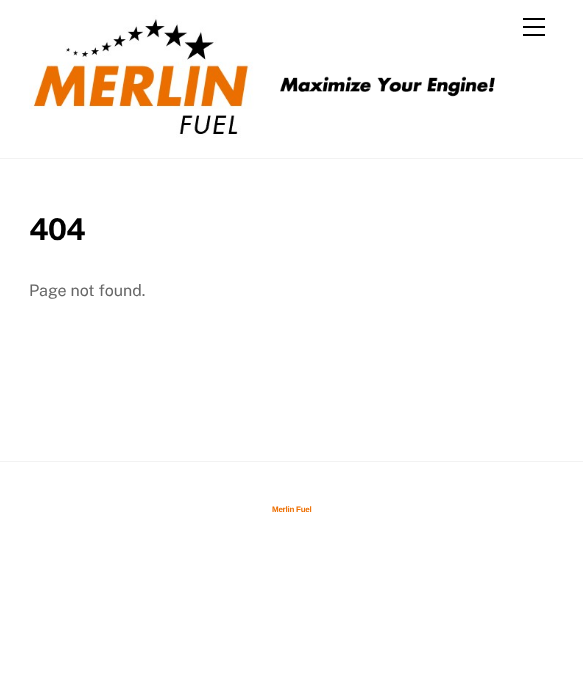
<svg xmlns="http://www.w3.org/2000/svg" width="583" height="675">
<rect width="100%" height="100%" fill="#fff"/>
<rect y="158" width="583" height="1" fill="#f2f2f2"/>
<image x="29" y="15" width="466" height="123" href="media/1.png"/>
<rect x="523" y="34" width="22" height="2" fill="#000"/>
<rect x="523" y="18" width="22" height="2" fill="#000"/>
<rect x="523" y="26" width="22" height="2" fill="#000"/>
<text x="29" y="240" style="font-family:Public Sans;font-size:30px;font-weight:bold;letter-spacing:-1px;fill:#000">404</text>
<text x="29" y="296" style="font-family:Public Sans;font-size:16px;fill:#666">Page not found.</text>
<rect y="461" width="583" height="1" fill="#f2f2f2"/>
<text x="272" y="512" style="font-family:Liberation Sans;font-size:8px;font-weight:bold;letter-spacing:-0.25px;fill:#ec6e00">Merlin Fuel</text>
</svg>
